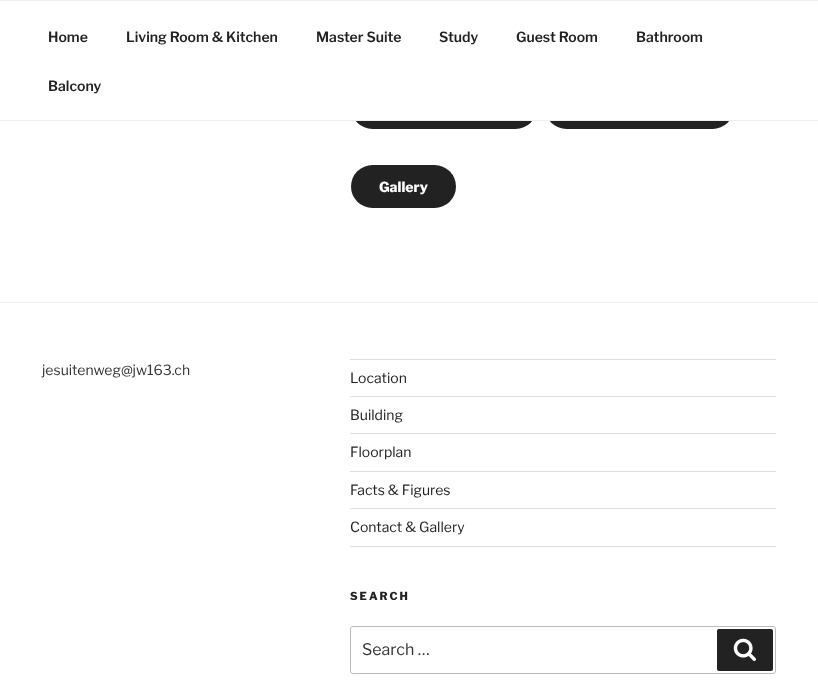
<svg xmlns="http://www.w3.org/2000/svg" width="818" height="686">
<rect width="100%" height="100%" fill="#fff"/>
<rect x="351" y="86" width="186" height="43" rx="21.5" fill="#222"/>
<rect x="545" y="86" width="189" height="43" rx="21.5" fill="#222"/>
<rect x="351" y="86" width="383" height="34" fill="#fff"/>
<rect width="818" height="1" fill="#eee"/>
<rect y="120" width="818" height="1" fill="#eee"/>
<text x="48" y="42" style="font-family:'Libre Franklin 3';font-size:14px;font-weight:100;fill:#222">Home</text>
<text x="126" y="42" style="font-family:'Libre Franklin 3';font-size:14px;font-weight:100;fill:#222">Living Room &amp; Kitchen</text>
<text x="316" y="42" style="font-family:'Libre Franklin 3';font-size:14px;font-weight:100;fill:#222">Master Suite</text>
<text x="439" y="42" style="font-family:'Libre Franklin 3';font-size:14px;font-weight:100;fill:#222">Study</text>
<text x="516" y="42" style="font-family:'Libre Franklin 3';font-size:14px;font-weight:100;fill:#222">Guest Room</text>
<text x="636" y="42" style="font-family:'Libre Franklin 3';font-size:14px;font-weight:100;fill:#222">Bathroom</text>
<text x="48" y="91" style="font-family:'Libre Franklin 3';font-size:14px;font-weight:100;fill:#222">Balcony</text>
<rect x="351" y="165" width="105" height="43" rx="21.5" fill="#222"/>
<text x="379" y="192" style="font-family:Libre Franklin;font-size:14px;font-weight:100;fill:#fff">Gallery</text>
<rect y="302" width="818" height="1" fill="#eee"/>
<text x="42" y="375" style="font-family:'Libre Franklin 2';font-size:14px;font-weight:100;fill:#333">jesuitenweg@jw163.ch</text>
<rect x="350" y="359" width="426" height="1" fill="#ddd"/>
<rect x="350" y="396" width="426" height="1" fill="#ddd"/>
<text x="350" y="383" style="font-family:'Libre Franklin 2';font-size:14px;font-weight:100;fill:#222">Location</text>
<rect x="350" y="433" width="426" height="1" fill="#ddd"/>
<text x="350" y="420" style="font-family:'Libre Franklin 2';font-size:14px;font-weight:100;fill:#222">Building</text>
<rect x="350" y="471" width="426" height="1" fill="#ddd"/>
<text x="350" y="457" style="font-family:'Libre Franklin 2';font-size:14px;font-weight:100;fill:#222">Floorplan</text>
<rect x="350" y="508" width="426" height="1" fill="#ddd"/>
<text x="350" y="495" style="font-family:'Libre Franklin 2';font-size:14px;font-weight:100;fill:#222">Facts &amp; Figures</text>
<rect x="350" y="546" width="426" height="1" fill="#ddd"/>
<text x="350" y="532" style="font-family:'Libre Franklin 2';font-size:14px;font-weight:100;fill:#222">Contact &amp; Gallery</text>
<text x="350" y="600" style="font-family:Libre Franklin;font-size:11px;font-weight:100;letter-spacing:2px;fill:#222">SEARCH</text>
<rect x="350.5" y="626.5" width="425" height="47" rx="2.5" fill="none" stroke="#bbb"/>
<text x="362" y="655" style="font-family:'Libre Franklin 2';font-size:16px;font-weight:100;fill:#333">Search …</text>
<rect x="717" y="629" width="56" height="42" rx="2" fill="#222"/>
<image x="733" y="638" width="23" height="23" href="media/1.png"/>
</svg>
